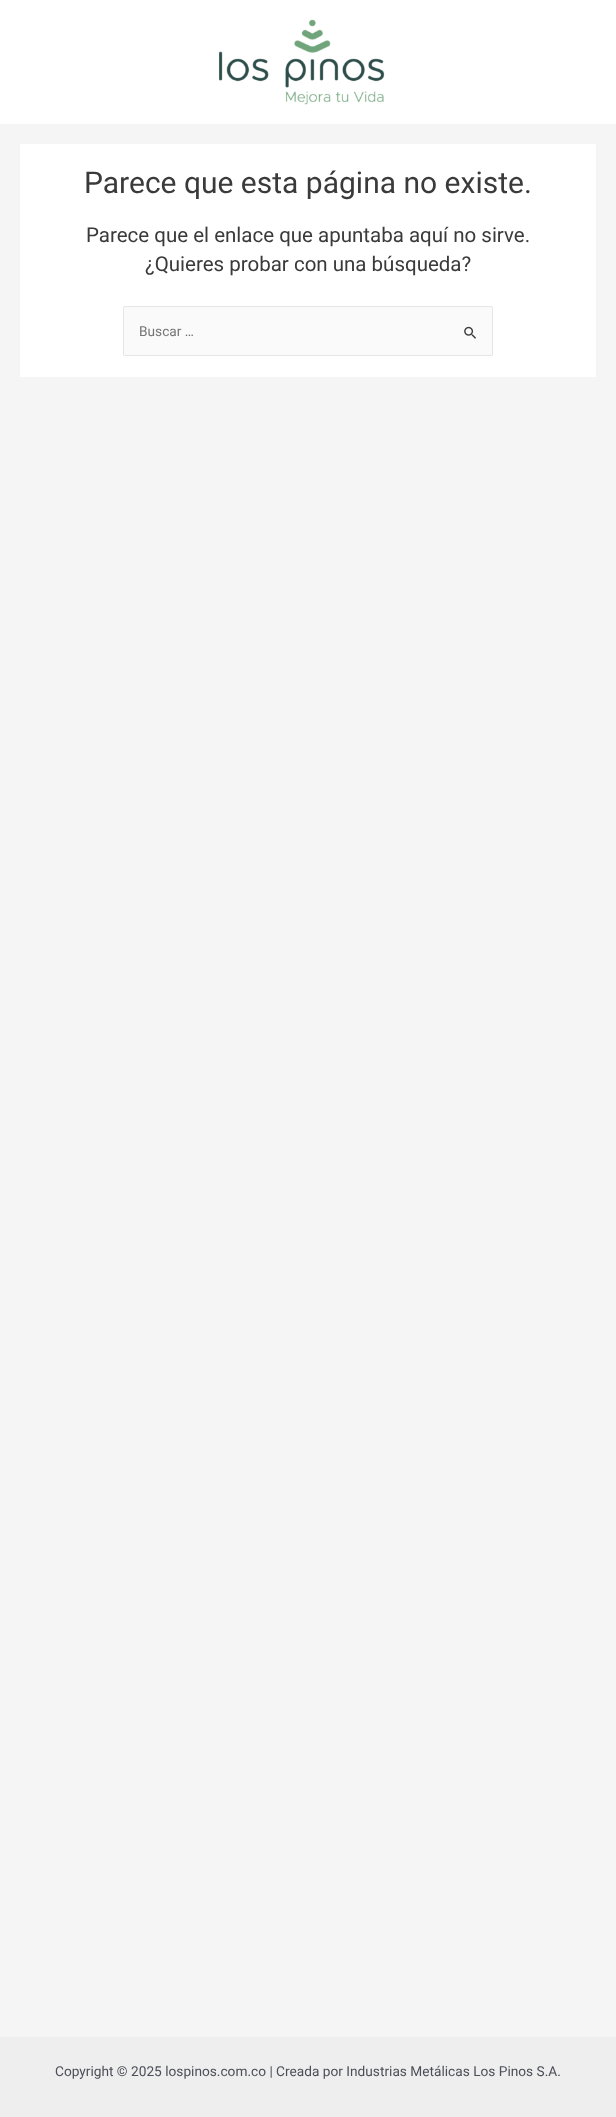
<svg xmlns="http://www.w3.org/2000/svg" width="616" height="2117">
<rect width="100%" height="100%" fill="#f5f5f5"/>
<rect width="616" height="124" fill="#fff"/>
<image x="218" y="19" width="167" height="86" href="media/1.png"/>
<rect x="20" y="144" width="576" height="233" fill="#fff"/>
<text x="84" y="193" style="font-family:Roboto;font-size:30px;fill:#3a3a3a">Parece que esta página no existe.</text>
<text x="86" y="242" style="font-family:Roboto;font-size:20.5px;fill:#3a3a3a">Parece que el enlace que apuntaba aquí no sirve.</text>
<text x="145" y="271" style="font-family:Roboto;font-size:20.5px;fill:#3a3a3a">¿Quieres probar con una búsqueda?</text>
<rect x="123.5" y="306.5" width="369" height="49" rx="1.5" fill="#fafafa" stroke="#e5e5e5"/>
<text x="139" y="336" style="font-family:Roboto;font-size:13.7px;fill:#757575">Buscar …</text>
<image x="464" y="326" width="12" height="13" href="media/2.png"/>
<rect y="2037" width="616" height="80" fill="#eee"/>
<text x="55" y="2076" style="font-family:Roboto;font-size:13.7px;fill:#4b4f58">Copyright © 2025 lospinos.com.co | Creada por Industrias Metálicas Los Pinos S.A.</text>
</svg>
